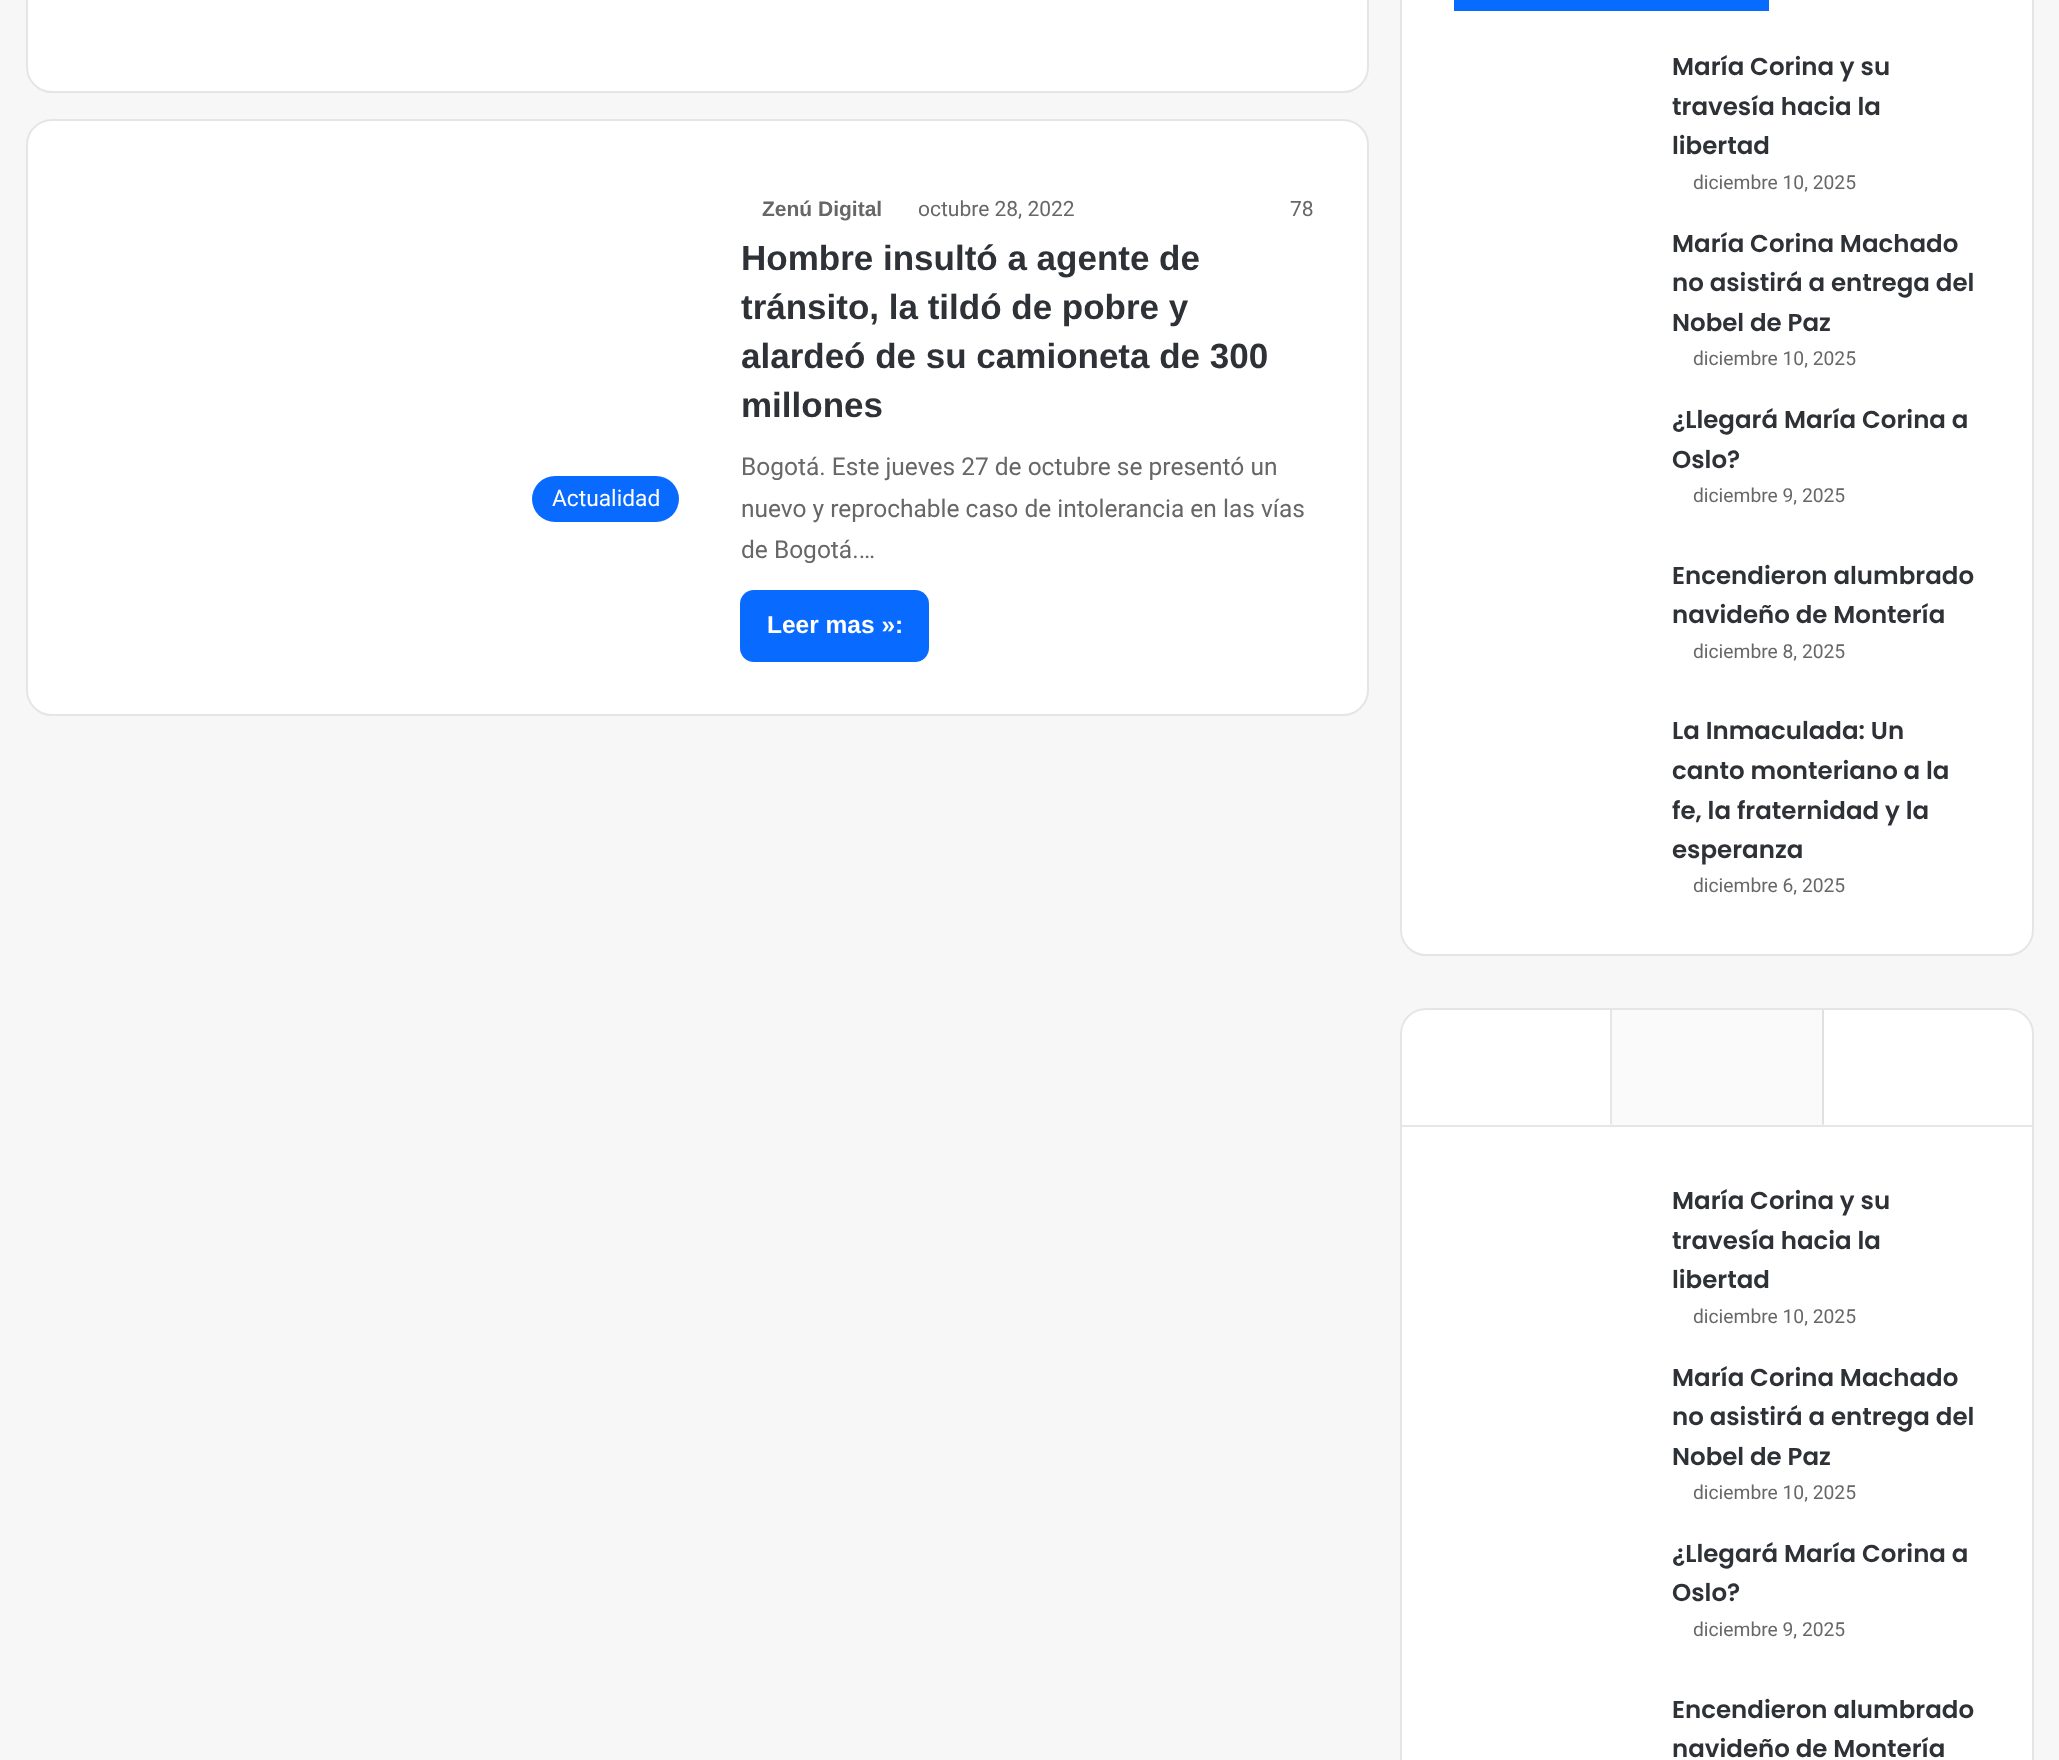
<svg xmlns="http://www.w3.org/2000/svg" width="2059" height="1760">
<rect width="100%" height="100%" fill="#f7f7f7"/>
<rect x="26" y="-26" width="1343" height="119" rx="26" fill="#fff"/>
<rect x="27" y="-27" width="1341" height="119" rx="25" fill="none" stroke="#0000001a" stroke-width="2"/>
<rect x="26" y="119" width="1343" height="597" rx="26" fill="#fff"/>
<rect x="27" y="120" width="1341" height="595" rx="25" fill="none" stroke="#0202021a" stroke-width="2"/>
<rect x="532" y="476" width="147" height="46" rx="23" fill="#086aff"/>
<text x="552" y="506" style="font-family:Roboto;font-size:22.75px;fill:#fff">Actualidad</text>
<text x="762" y="216" style="font-family:Liberation Sans;font-size:21px;font-weight:bold;fill:#676767">Zenú Digital</text>
<text x="918" y="216" style="font-family:Roboto;font-size:21px;fill:#676767">octubre 28, 2022</text>
<text x="1290" y="216" style="font-family:Roboto;font-size:21px;fill:#676767">78</text>
<text x="741" y="270" style="font-family:Liberation Sans;font-size:35px;font-weight:bold;fill:#2e3136">Hombre insultó a agente de</text>
<text x="741" y="319" style="font-family:Liberation Sans;font-size:35px;font-weight:bold;fill:#2e3136">tránsito, la tildó de pobre y</text>
<text x="741" y="368" style="font-family:Liberation Sans;font-size:35px;font-weight:bold;fill:#2e3136">alardeó de su camioneta de 300</text>
<text x="741" y="417" style="font-family:Liberation Sans;font-size:35px;font-weight:bold;fill:#2e3136">millones</text>
<text x="741" y="475" style="font-family:Roboto;font-size:24.5px;fill:#676767">Bogotá. Este jueves 27 de octubre se presentó un</text>
<text x="741" y="517" style="font-family:Roboto;font-size:24.5px;fill:#676767">nuevo y reprochable caso de intolerancia en las vías</text>
<text x="741" y="558" style="font-family:Roboto;font-size:24.5px;fill:#676767">de Bogotá.…</text>
<rect x="740" y="590" width="189" height="72" rx="14" fill="#086aff"/>
<text x="767" y="633" style="font-family:Liberation Sans;font-size:24.5px;font-weight:bold;fill:#fff">Leer mas »:</text>
<rect x="1400" y="-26" width="634" height="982" rx="26" fill="#fff"/>
<rect x="1401" y="-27" width="632" height="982" rx="25" fill="none" stroke="#0000001a" stroke-width="2"/>
<rect x="1454" width="315" height="11" fill="#086bff"/>
<text x="1672" y="75" style="font-family:Poppins;font-size:24.5px;font-weight:600;fill:#2e3136">María Corina y su</text>
<text x="1672" y="115" style="font-family:Poppins;font-size:24.5px;font-weight:600;fill:#2e3136">travesía hacia la</text>
<text x="1672" y="154" style="font-family:Poppins;font-size:24.5px;font-weight:600;fill:#2e3136">libertad</text>
<text x="1693" y="189" style="font-family:Roboto;font-size:19.25px;fill:#676767">diciembre 10, 2025</text>
<text x="1672" y="252" style="font-family:Poppins;font-size:24.5px;font-weight:600;fill:#2e3136">María Corina Machado</text>
<text x="1672" y="291" style="font-family:Poppins;font-size:24.5px;font-weight:600;fill:#2e3136">no asistirá a entrega del</text>
<text x="1672" y="331" style="font-family:Poppins;font-size:24.5px;font-weight:600;fill:#2e3136">Nobel de Paz</text>
<text x="1693" y="365" style="font-family:Roboto;font-size:19.25px;fill:#676767">diciembre 10, 2025</text>
<text x="1672" y="428" style="font-family:Poppins;font-size:24.5px;font-weight:600;fill:#2e3136">¿Llegará María Corina a</text>
<text x="1672" y="468" style="font-family:Poppins;font-size:24.5px;font-weight:600;fill:#2e3136">Oslo?</text>
<text x="1693" y="502" style="font-family:Roboto;font-size:19.25px;fill:#676767">diciembre 9, 2025</text>
<text x="1672" y="584" style="font-family:Poppins;font-size:24.5px;font-weight:600;fill:#2e3136">Encendieron alumbrado</text>
<text x="1672" y="623" style="font-family:Poppins;font-size:24.5px;font-weight:600;fill:#2e3136">navideño de Montería</text>
<text x="1693" y="658" style="font-family:Roboto;font-size:19.25px;fill:#676767">diciembre 8, 2025</text>
<text x="1672" y="739" style="font-family:Poppins;font-size:24.5px;font-weight:600;fill:#2e3136">La Inmaculada: Un</text>
<text x="1672" y="779" style="font-family:Poppins;font-size:24.5px;font-weight:600;fill:#2e3136">canto monteriano a la</text>
<text x="1672" y="819" style="font-family:Poppins;font-size:24.5px;font-weight:600;fill:#2e3136">fe, la fraternidad y la</text>
<text x="1672" y="858" style="font-family:Poppins;font-size:24.5px;font-weight:600;fill:#2e3136">esperanza</text>
<text x="1693" y="892" style="font-family:Roboto;font-size:19.25px;fill:#676767">diciembre 6, 2025</text>
<rect x="1400" y="1008" width="634" height="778" rx="26" fill="#fff"/>
<rect x="1401" y="1009" width="632" height="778" rx="25" fill="none" stroke="#0000001a" stroke-width="2"/>
<rect x="1402" y="1125" width="630" height="2" fill="#e6e6e6"/>
<path d="M1612 1125l-2-1v-114h2z" fill="#e6e6e6"/>
<rect x="1612" y="1010" width="212" height="115" fill="#fafafa"/>
<path d="M1824 1010v115l-2-1v-114z" fill="#e1e1e1"/>
<text x="1672" y="1209" style="font-family:Poppins;font-size:24.5px;font-weight:600;fill:#2e3136">María Corina y su</text>
<text x="1672" y="1249" style="font-family:Poppins;font-size:24.5px;font-weight:600;fill:#2e3136">travesía hacia la</text>
<text x="1672" y="1288" style="font-family:Poppins;font-size:24.5px;font-weight:600;fill:#2e3136">libertad</text>
<text x="1693" y="1323" style="font-family:Roboto;font-size:19.25px;fill:#676767">diciembre 10, 2025</text>
<text x="1672" y="1386" style="font-family:Poppins;font-size:24.5px;font-weight:600;fill:#2e3136">María Corina Machado</text>
<text x="1672" y="1425" style="font-family:Poppins;font-size:24.5px;font-weight:600;fill:#2e3136">no asistirá a entrega del</text>
<text x="1672" y="1465" style="font-family:Poppins;font-size:24.5px;font-weight:600;fill:#2e3136">Nobel de Paz</text>
<text x="1693" y="1499" style="font-family:Roboto;font-size:19.25px;fill:#676767">diciembre 10, 2025</text>
<text x="1672" y="1562" style="font-family:Poppins;font-size:24.5px;font-weight:600;fill:#2e3136">¿Llegará María Corina a</text>
<text x="1672" y="1601" style="font-family:Poppins;font-size:24.5px;font-weight:600;fill:#2e3136">Oslo?</text>
<text x="1693" y="1636" style="font-family:Roboto;font-size:19.25px;fill:#676767">diciembre 9, 2025</text>
<text x="1672" y="1718" style="font-family:Poppins;font-size:24.5px;font-weight:600;fill:#2e3136">Encendieron alumbrado</text>
<text x="1672" y="1757" style="font-family:Poppins;font-size:24.5px;font-weight:600;fill:#2e3136">navideño de Montería</text>
</svg>
